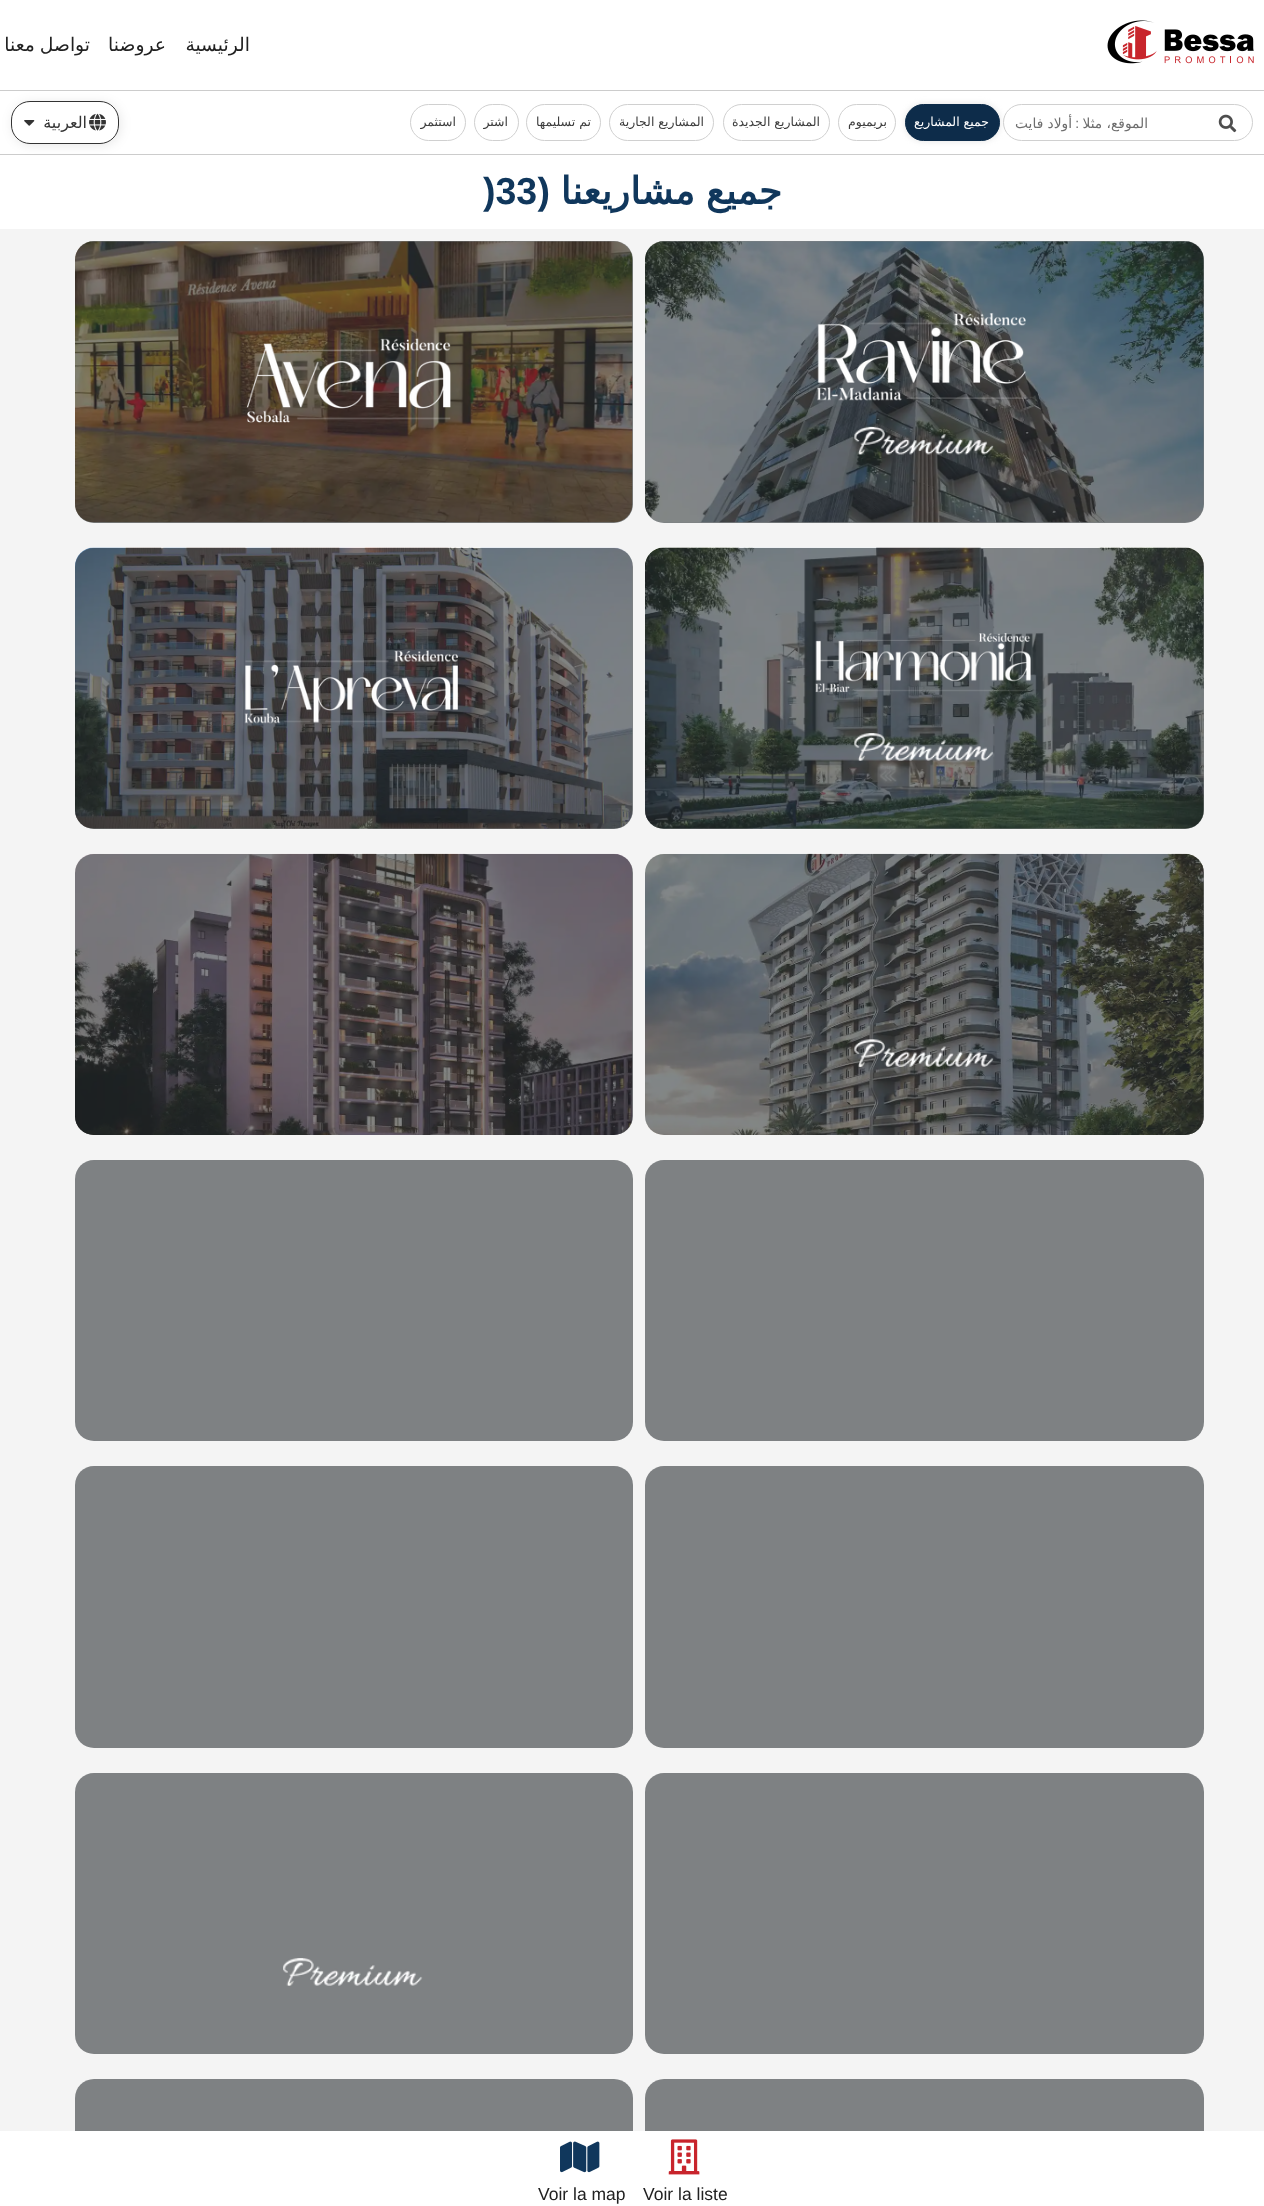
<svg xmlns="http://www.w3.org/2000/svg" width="1264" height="2206">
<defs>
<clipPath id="clip1"><path d="M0 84h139v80h-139zm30 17h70c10.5 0 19 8.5 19 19v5c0 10.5-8.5 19-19 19h-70c-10.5 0-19-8.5-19-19v-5c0-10.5 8.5-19 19-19z" clip-rule="evenodd"/></clipPath>
</defs>
<rect width="100%" height="100%" fill="#fff"/>
<rect y="90" width="1264" height="1" fill="#ccc"/>
<image x="1107" y="20" width="147" height="44" href="media/1.png"/>
<text x="250" y="51" style="font-family:DejaVu Sans;font-size:18.75px;direction:rtl;fill:#212121">الرئيسية</text>
<text x="166" y="51" style="font-family:DejaVu Sans;font-size:18.75px;direction:rtl;fill:#212121">عروضنا</text>
<text x="90" y="51" word-spacing="-1" style="font-family:DejaVu Sans;font-size:18.75px;direction:rtl;fill:#212121">تواصل معنا</text>
<rect y="154" width="1264" height="1" fill="#ccc"/>
<rect x="905" y="104" width="95" height="37" rx="18.5" fill="#d1d1d19c" filter="blur(3px)"/>
<rect x="1003.5" y="104.5" width="249" height="36" rx="18" fill="#fff" stroke="#d0d0d0"/>
<image x="1218" y="114" width="19" height="19" href="media/2.png"/>
<text x="1148" y="128" style="font-family:DejaVu Sans;font-size:13.75px;direction:rtl;fill:#6d6d6d">الموقع، مثلا</text>
<text x="1079" y="128" style="font-family:Liberation Sans;font-size:13.75px;direction:rtl;fill:#6d6d6d">:</text>
<text x="1072" y="128" style="font-family:DejaVu Sans;font-size:13.75px;direction:rtl;fill:#6d6d6d">أولاد فايت</text>
<rect x="905.5" y="104.5" width="94" height="36" rx="18" fill="#0d2c4a" stroke="#0d2c4a"/>
<text x="989" y="126" style="font-family:DejaVu Sans;font-size:12.5px;direction:rtl;fill:#fff">جميع المشاريع</text>
<rect x="838.5" y="104.5" width="57" height="36" rx="18" fill="none" stroke="#d0d0d0"/>
<text x="887" y="126" style="font-family:DejaVu Sans;font-size:12.5px;direction:rtl;fill:#3d3d3d">بريميوم</text>
<rect x="723.5" y="104.5" width="106" height="36" rx="18" fill="none" stroke="#d0d0d0"/>
<text x="820" y="126" style="font-family:DejaVu Sans;font-size:12.5px;direction:rtl;fill:#3d3d3d">المشاريع الجديدة</text>
<rect x="609.5" y="104.5" width="104" height="36" rx="18" fill="none" stroke="#d0d0d0"/>
<text x="704" y="126" style="font-family:DejaVu Sans;font-size:12.5px;direction:rtl;fill:#3d3d3d">المشاريع الجارية</text>
<rect x="526.5" y="104.5" width="74" height="36" rx="18" fill="none" stroke="#d0d0d0"/>
<text x="591" y="126" style="font-family:DejaVu Sans;font-size:12.5px;direction:rtl;fill:#3d3d3d">تم تسليمها</text>
<rect x="474.5" y="104.5" width="44" height="36" rx="18" fill="none" stroke="#d0d0d0"/>
<text x="508" y="126" style="font-family:DejaVu Sans;font-size:12.5px;direction:rtl;fill:#3d3d3d">اشتر</text>
<rect x="410.5" y="104.5" width="55" height="36" rx="18" fill="none" stroke="#d0d0d0"/>
<text x="456" y="126" style="font-family:DejaVu Sans;font-size:12.5px;direction:rtl;fill:#3d3d3d">استثمر</text>
<g clip-path="url(#clip1)">
<rect x="13" y="103" width="107" height="42" rx="19" fill="#0000001a" filter="blur(6px)"/>
</g>
<rect x="11.5" y="101.5" width="107" height="42" rx="18.5" fill="none" stroke="#333"/>
<image x="89" y="113" width="17" height="18" href="media/3.png"/>
<text x="87" y="128" style="font-family:DejaVu Sans;font-size:16px;direction:rtl;fill:#333">العربية</text>
<image x="24" y="120" width="11" height="6" href="media/4.png"/>
<rect y="229" width="1264" height="1902" fill="#f4f4f4"/>
<text x="782" y="204" word-spacing="-1" style="font-family:DejaVu Sans;font-size:37.5px;font-weight:bold;direction:rtl;fill:#10375c">جميع مشاريعنا</text>
<text x="550" y="204" style="font-family:Liberation Sans;font-size:37.5px;font-weight:bold;direction:rtl;fill:#10375c">(</text>
<text x="483" y="204" style="font-family:Liberation Sans;font-size:37.5px;font-weight:bold;fill:#10375c">)33</text>
<image x="645" y="241" width="559" height="282" href="media/5.png"/>
<rect x="645" y="241" width="559" height="282" rx="19" fill="#2f353899"/>
<image x="817" y="313" width="209" height="88" href="media/6.png"/>
<image x="854" y="426" width="140" height="29" href="media/7.png"/>
<image x="75" y="241" width="558" height="282" href="media/8.png"/>
<rect x="75" y="241" width="558" height="282" rx="19" fill="#2f353899"/>
<image x="246" y="338" width="205" height="85" href="media/9.png"/>
<image x="645" y="547" width="559" height="282" href="media/10.png"/>
<rect x="645" y="548" width="559" height="281" rx="19" fill="#2f353899"/>
<image x="815" y="633" width="216" height="60" href="media/11.png"/>
<image x="854" y="733" width="140" height="28" href="media/12.png"/>
<image x="75" y="547" width="558" height="282" href="media/13.png"/>
<rect x="75" y="548" width="558" height="281" rx="19" fill="#2f353899"/>
<image x="244" y="650" width="214" height="74" href="media/14.png"/>
<image x="645" y="853" width="559" height="282" href="media/15.png"/>
<rect x="645" y="854" width="559" height="281" rx="19" fill="#2f353899"/>
<image x="853" y="1039" width="141" height="28" href="media/16.png"/>
<image x="75" y="853" width="558" height="282" href="media/17.png"/>
<rect x="75" y="854" width="558" height="281" rx="19" fill="#2f353899"/>
<rect x="645" y="1160" width="559" height="281" rx="19" fill="#7e8183"/>
<rect x="75" y="1160" width="558" height="281" rx="19" fill="#7e8183"/>
<rect x="645" y="1466" width="559" height="282" rx="19" fill="#7e8183"/>
<rect x="75" y="1466" width="558" height="282" rx="19" fill="#7e8183"/>
<rect x="645" y="1773" width="559" height="281" rx="19" fill="#7e8183"/>
<rect x="75" y="1773" width="558" height="281" rx="19" fill="#7e8183"/>
<image x="283" y="1958" width="140" height="28" href="media/18.png"/>
<path d="M664 2079h521c10.5 0 19 8.5 19 19v33h-559v-33c0-10.5 8.5-19 19-19z" fill="#7e8183"/>
<path d="M94 2079h520c10.5 0 19 8.5 19 19v33h-558v-33c0-10.5 8.5-19 19-19z" fill="#7e8183"/>
<image x="668" y="2139" width="32" height="36" href="media/19.png"/>
<text x="643" y="2200" style="font-family:Liberation Sans;font-size:17.5px;fill:#212121">Voir la liste</text>
<image x="560" y="2141" width="40" height="32" href="media/20.png"/>
<text x="538" y="2200" style="font-family:Liberation Sans;font-size:17.5px;fill:#212121">Voir la map</text>
</svg>
